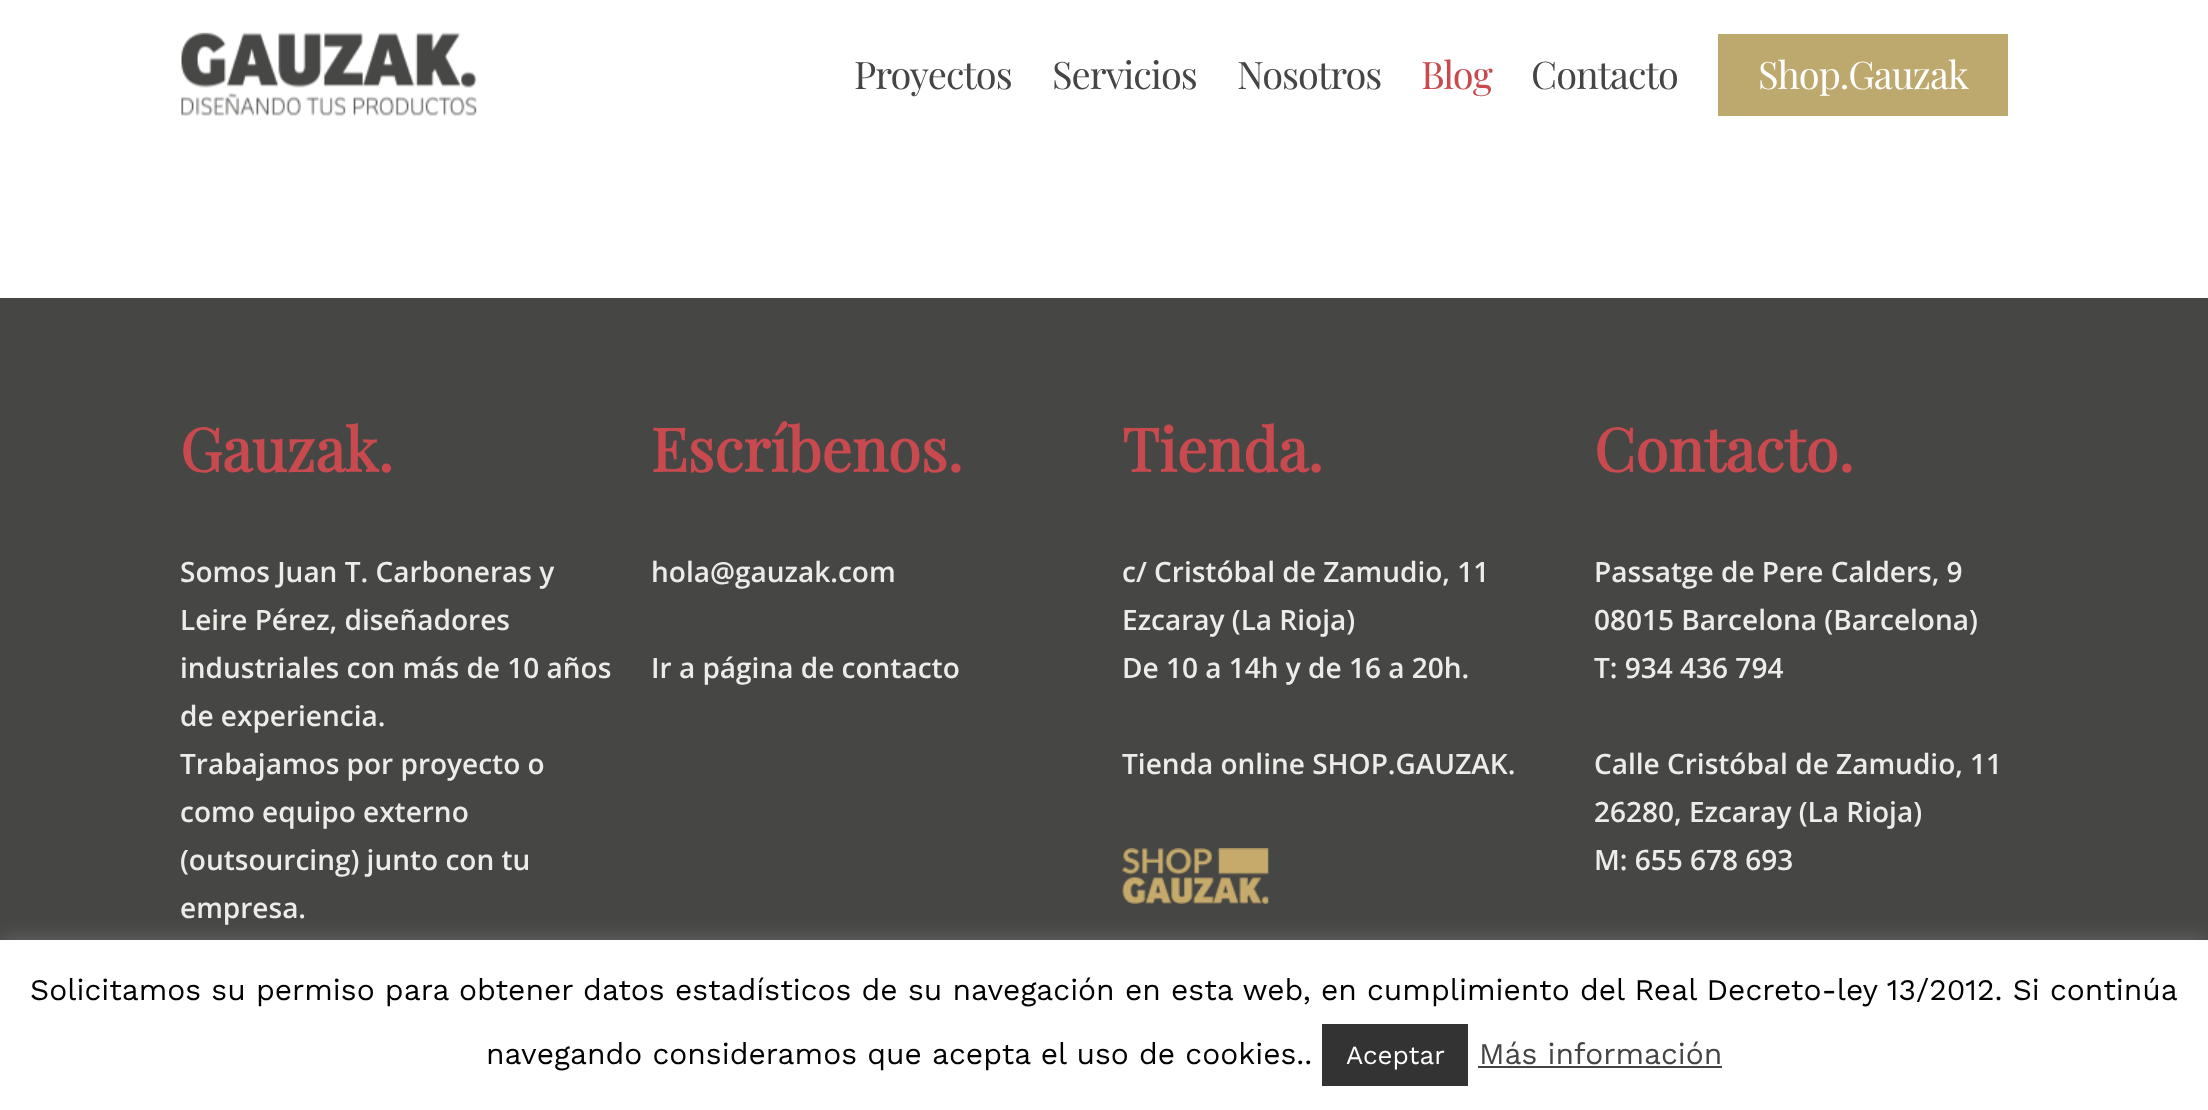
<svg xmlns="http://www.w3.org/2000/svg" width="2208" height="1110">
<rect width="100%" height="100%" fill="#fff"/>
<image x="181" y="32" width="296" height="84" href="media/1.png"/>
<text x="854" y="89" style="font-family:Playfair Display;font-size:38px;letter-spacing:-1px;fill:#454545">Proyectos</text>
<text x="1052" y="89" style="font-family:Playfair Display;font-size:38px;letter-spacing:-1px;fill:#454545">Servicios</text>
<text x="1237" y="89" style="font-family:Playfair Display;font-size:38px;letter-spacing:-1px;fill:#454545">Nosotros</text>
<text x="1421" y="89" style="font-family:Playfair Display;font-size:38px;letter-spacing:-1px;fill:#c94a4e">Blog</text>
<text x="1531" y="89" style="font-family:Playfair Display;font-size:38px;letter-spacing:-1px;fill:#454545">Contacto</text>
<rect x="1718" y="34" width="290" height="82" fill="#bda86e"/>
<text x="1758" y="89" style="font-family:Playfair Display;font-size:38px;letter-spacing:-1px;fill:#fff">Shop.Gauzak</text>
<rect y="298" width="2208" height="642" fill="#464645"/>
<text x="180" y="472" style="font-family:Playfair Display;font-size:60px;font-weight:bold;fill:#c94a4e">Gauzak.</text>
<text x="180" y="582" style="font-family:Open Sans;font-size:28px;font-weight:600;fill:#edece8">Somos Juan T. Carboneras y</text>
<text x="180" y="630" style="font-family:Open Sans;font-size:28px;font-weight:600;fill:#edece8">Leire Pérez, diseñadores</text>
<text x="180" y="678" style="font-family:Open Sans;font-size:28px;font-weight:600;fill:#edece8">industriales con más de 10 años</text>
<text x="180" y="726" style="font-family:Open Sans;font-size:28px;font-weight:600;fill:#edece8">de experiencia.</text>
<text x="180" y="774" style="font-family:Open Sans;font-size:28px;font-weight:600;fill:#edece8">Trabajamos por proyecto o</text>
<text x="180" y="822" style="font-family:Open Sans;font-size:28px;font-weight:600;fill:#edece8">como equipo externo</text>
<text x="180" y="870" style="font-family:Open Sans;font-size:28px;font-weight:600;fill:#edece8">(outsourcing) junto con tu</text>
<text x="180" y="918" style="font-family:Open Sans;font-size:28px;font-weight:600;fill:#edece8">empresa.</text>
<text x="651" y="472" style="font-family:Playfair Display;font-size:60px;font-weight:bold;fill:#c94a4e">Escríbenos.</text>
<text x="651" y="582" style="font-family:Open Sans;font-size:28px;font-weight:600;fill:#edece8">hola@gauzak.com</text>
<text x="651" y="678" style="font-family:Open Sans;font-size:28px;font-weight:600;fill:#edece8">Ir a página de contacto</text>
<text x="1122" y="472" style="font-family:Playfair Display;font-size:60px;font-weight:bold;fill:#c94a4e">Tienda.</text>
<text x="1122" y="582" style="font-family:Open Sans;font-size:28px;font-weight:600;fill:#edece8">c/ Cristóbal de Zamudio, 11</text>
<text x="1122" y="630" style="font-family:Open Sans;font-size:28px;font-weight:600;fill:#edece8">Ezcaray (La Rioja)</text>
<text x="1122" y="678" style="font-family:Open Sans;font-size:28px;font-weight:600;fill:#edece8">De 10 a 14h y de 16 a 20h.</text>
<text x="1122" y="774" style="font-family:Open Sans;font-size:28px;font-weight:600;fill:#edece8">Tienda online SHOP.GAUZAK.</text>
<image x="1122" y="848" width="147" height="56" href="media/2.png"/>
<text x="1594" y="472" style="font-family:Playfair Display;font-size:60px;font-weight:bold;fill:#c94a4e">Contacto.</text>
<text x="1594" y="582" style="font-family:Open Sans;font-size:28px;font-weight:600;fill:#edece8">Passatge de Pere Calders, 9</text>
<text x="1594" y="630" style="font-family:Open Sans;font-size:28px;font-weight:600;fill:#edece8">08015 Barcelona (Barcelona)</text>
<text x="1594" y="678" style="font-family:Open Sans;font-size:28px;font-weight:600;fill:#edece8">T: 934 436 794</text>
<text x="1594" y="774" style="font-family:Open Sans;font-size:28px;font-weight:600;fill:#edece8">Calle Cristóbal de Zamudio, 11</text>
<text x="1594" y="822" style="font-family:Open Sans;font-size:28px;font-weight:600;fill:#edece8">26280, Ezcaray (La Rioja)</text>
<text x="1594" y="870" style="font-family:Open Sans;font-size:28px;font-weight:600;fill:#edece8">M: 655 678 693</text>
<rect y="938" width="2208" height="170" fill="#acabab4d" filter="blur(10px)"/>
<rect y="940" width="2208" height="170" fill="#fff"/>
<text x="30" y="1000" style="font-family:Work Sans;font-size:30px;fill:#000">Solicitamos su permiso para obtener datos estadísticos de su navegación en esta web, en cumplimiento del Real Decreto-ley 13/2012. Si continúa</text>
<text x="486" y="1064" style="font-family:Work Sans;font-size:30px;fill:#000">navegando consideramos que acepta el uso de cookies..</text>
<rect x="1322" y="1024" width="146" height="62" fill="#333"/>
<text x="1346" y="1064" style="font-family:Work Sans;font-size:26px;fill:#fff">Aceptar</text>
<text x="1479" y="1064" style="font-family:Work Sans;font-size:30px;fill:#454545">Más información</text>
<rect x="1478" y="1066" width="244" height="2" fill="#444"/>
</svg>
